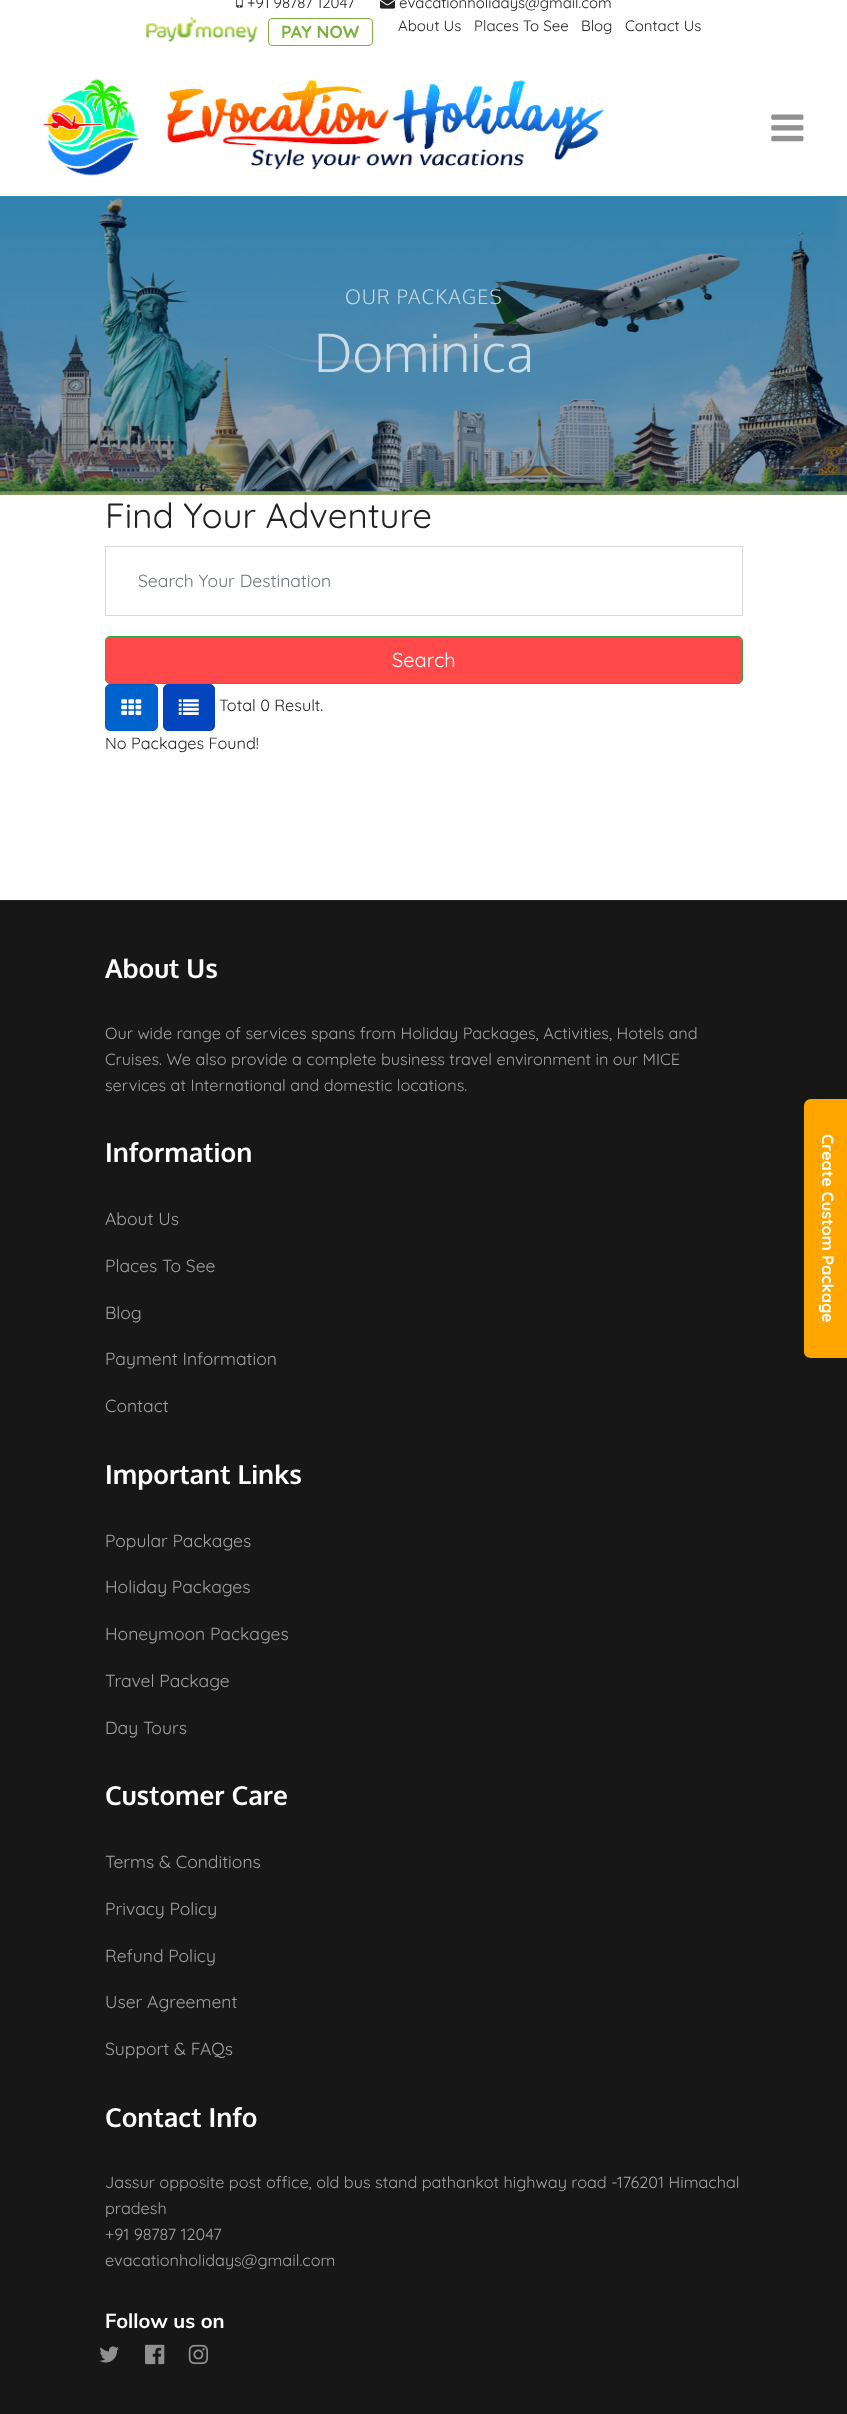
<svg xmlns="http://www.w3.org/2000/svg" width="847" height="2414">
<rect width="100%" height="100%" fill="#fff"/>
<image x="236" y="0" width="7" height="8" href="media/1.png"/>
<text x="247" y="8" style="font-family:Quicksand;font-size:15px;fill:#222">+91 98787 12047</text>
<image x="380" y="0" width="15" height="9" href="media/2.png"/>
<text x="399" y="8" style="font-family:Quicksand;font-size:15px;fill:#222">evacationholidays@gmail.com</text>
<image x="146" y="17" width="112" height="26" href="media/3.png"/>
<rect x="268.5" y="18.5" width="104" height="27" rx="3.5" fill="none" stroke="#7db23e"/>
<text x="281" y="38" style="font-family:Quicksand;font-size:17.5px;font-weight:bold;fill:#7db23e">PAY NOW</text>
<text x="398" y="31" style="font-family:Quicksand;font-size:15px;fill:#222">About Us</text>
<text x="474" y="31" style="font-family:Quicksand;font-size:15px;fill:#222">Places To See</text>
<text x="581" y="31" style="font-family:Quicksand;font-size:15px;fill:#222">Blog</text>
<text x="625" y="31" style="font-family:Quicksand;font-size:15px;fill:#222">Contact Us</text>
<image x="44" y="79" width="560" height="97" href="media/4.png"/>
<image x="771" y="114" width="33" height="28" href="media/5.png"/>
<image x="0" y="196" width="847" height="299" href="media/6.png"/>
<text x="345" y="304" style="font-family:Oxygen;font-size:20px;font-weight:300;letter-spacing:1.1px;fill:#c6d9e4">OUR PACKAGES</text>
<text x="314" y="372" style="font-family:Oxygen;font-size:52.5px;font-weight:300;fill:#ccdce6">Dominica</text>
<text x="105" y="528" style="font-family:Quicksand;font-size:35px;fill:#222">Find Your Adventure</text>
<rect x="105.5" y="546.5" width="637" height="69" fill="none" stroke="#d9d9d9"/>
<text x="138" y="587" style="font-family:Quicksand;font-size:17.5px;fill:#6c757d">Search Your Destination</text>
<rect x="105.5" y="636.5" width="637" height="47" rx="4.5" fill="#ff494a" stroke="#28a745"/>
<text x="392" y="667" style="font-family:Quicksand;font-size:20px;fill:#fff">Search</text>
<rect x="105.5" y="684.5" width="52" height="46" rx="4.5" fill="#0062cc" stroke="#005cbf"/>
<image x="121" y="699" width="21" height="16" href="media/7.png"/>
<rect x="163.5" y="684.5" width="51" height="46" rx="4.5" fill="#0345bf" stroke="#0345bf"/>
<image x="178" y="699" width="21" height="16" href="media/8.png"/>
<text x="219" y="711" style="font-family:Quicksand;font-size:16.25px;fill:#222">Total 0 Result.</text>
<text x="105" y="749" style="font-family:Quicksand;font-size:16.25px;fill:#222">No Packages Found!</text>
<rect y="901" width="847" height="1513" fill="#171717"/>
<rect y="900" width="847" height="1" fill="#232323"/>
<text x="105" y="978" style="font-family:Oxygen;font-size:26.25px;font-weight:bold;fill:#fff">About Us</text>
<text x="105" y="1039" style="font-family:Quicksand;font-size:16.25px;fill:#a2a2a2">Our wide range of services spans from Holiday Packages, Activities, Hotels and</text>
<text x="105" y="1065" style="font-family:Quicksand;font-size:16.25px;fill:#a2a2a2">Cruises. We also provide a complete business travel environment in our MICE</text>
<text x="105" y="1091" style="font-family:Quicksand;font-size:16.25px;fill:#a2a2a2">services at International and domestic locations.</text>
<text x="105" y="1162" style="font-family:Oxygen;font-size:26.25px;font-weight:bold;fill:#fff">Information</text>
<text x="105" y="1225" style="font-family:Quicksand;font-size:17.5px;fill:#a2a2a2">About Us</text>
<text x="105" y="1272" style="font-family:Quicksand;font-size:17.5px;fill:#a2a2a2">Places To See</text>
<text x="105" y="1319" style="font-family:Quicksand;font-size:17.5px;fill:#a2a2a2">Blog</text>
<text x="105" y="1365" style="font-family:Quicksand;font-size:17.5px;fill:#a2a2a2">Payment Information</text>
<text x="105" y="1412" style="font-family:Quicksand;font-size:17.5px;fill:#a2a2a2">Contact</text>
<text x="105" y="1484" style="font-family:Oxygen;font-size:26.25px;font-weight:bold;fill:#fff">Important Links</text>
<text x="105" y="1547" style="font-family:Quicksand;font-size:17.5px;fill:#a2a2a2">Popular Packages</text>
<text x="105" y="1593" style="font-family:Quicksand;font-size:17.5px;fill:#a2a2a2">Holiday Packages</text>
<text x="105" y="1640" style="font-family:Quicksand;font-size:17.5px;fill:#a2a2a2">Honeymoon Packages</text>
<text x="105" y="1687" style="font-family:Quicksand;font-size:17.5px;fill:#a2a2a2">Travel Package</text>
<text x="105" y="1734" style="font-family:Quicksand;font-size:17.5px;fill:#a2a2a2">Day Tours</text>
<text x="105" y="1805" style="font-family:Oxygen;font-size:26.25px;font-weight:bold;fill:#fff">Customer Care</text>
<text x="105" y="1868" style="font-family:Quicksand;font-size:17.5px;fill:#a2a2a2">Terms &amp; Conditions</text>
<text x="105" y="1915" style="font-family:Quicksand;font-size:17.5px;fill:#a2a2a2">Privacy Policy</text>
<text x="105" y="1962" style="font-family:Quicksand;font-size:17.5px;fill:#a2a2a2">Refund Policy</text>
<text x="105" y="2008" style="font-family:Quicksand;font-size:17.5px;fill:#a2a2a2">User Agreement</text>
<text x="105" y="2055" style="font-family:Quicksand;font-size:17.5px;fill:#a2a2a2">Support &amp; FAQs</text>
<text x="105" y="2127" style="font-family:Oxygen;font-size:26.25px;font-weight:bold;fill:#fff">Contact Info</text>
<text x="105" y="2188" style="font-family:Quicksand;font-size:16.25px;fill:#a2a2a2">Jassur opposite post office, old bus stand pathankot highway road -176201 Himachal</text>
<text x="105" y="2214" style="font-family:Quicksand;font-size:16.25px;fill:#a2a2a2">pradesh</text>
<text x="105" y="2240" style="font-family:Quicksand;font-size:16.25px;fill:#a2a2a2">+91 98787 12047</text>
<text x="105" y="2266" style="font-family:Quicksand;font-size:16.25px;fill:#a2a2a2">evacationholidays@gmail.com</text>
<text x="105" y="2328" style="font-family:Muli;font-size:20px;font-weight:bold;fill:#fff">Follow us on</text>
<image x="99" y="2346" width="20" height="17" href="media/9.png"/>
<image x="145" y="2344" width="20" height="21" href="media/10.png"/>
<image x="188" y="2344" width="20" height="21" href="media/11.png"/>
<path d="M847 1099v259h-36c-4 0-7-3-7-6v-246c0-4 3-7 7-7z" fill="#ffa500"/>
<text x="822" y="1134" transform="rotate(90 822 1134)" style="font-family:Quicksand;font-size:16.25px;font-weight:bold;fill:#fff">Create Custom Package</text>
</svg>
